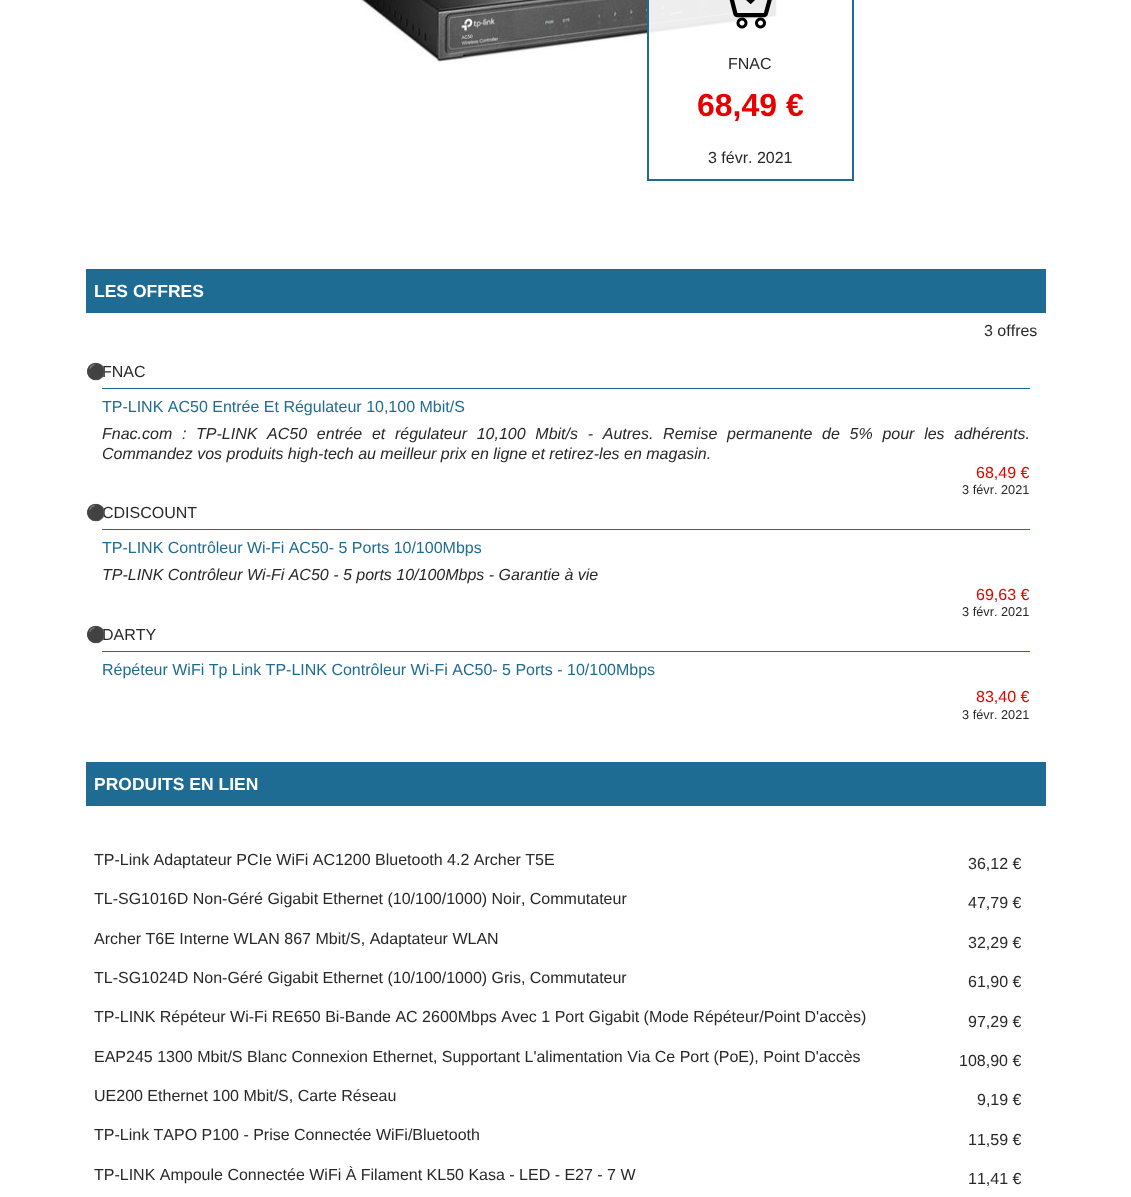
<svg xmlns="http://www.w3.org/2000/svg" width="1131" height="1197">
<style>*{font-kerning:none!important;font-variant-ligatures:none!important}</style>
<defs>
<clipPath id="clip1"><rect x="86" y="356" width="960" height="141"/></clipPath>
<clipPath id="clip2"><rect x="86" y="497" width="960" height="122"/></clipPath>
<clipPath id="clip3"><rect x="86" y="619" width="960" height="103"/></clipPath>
</defs>
<rect width="100%" height="100%" fill="#fff"/>
<image x="360" y="0" width="419" height="65" href="media/1.png"/>
<rect x="649" width="130" height="34" fill="#ffffffe6"/>
<rect x="648" y="-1" width="205" height="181" fill="none" stroke="#1e6c93" stroke-width="2"/>
<image x="729" y="0" width="43" height="29" href="media/2.png"/>
<text x="728" y="69" style="font-family:Liberation Sans;font-size:16px;fill:#282828">FNAC</text>
<text x="697" y="116" style="font-family:Liberation Sans;font-size:32px;font-weight:bold;fill:#e60000">68,49 €</text>
<text x="708" y="163" style="font-family:Liberation Sans;font-size:16px;fill:#282828">3 févr. 2021</text>
<rect x="86" y="269" width="960" height="44" fill="#1e6c93"/>
<text x="94" y="297" style="font-family:Liberation Sans;font-size:17.5px;font-weight:bold;fill:#fff">LES OFFRES</text>
<text x="984" y="336" style="font-family:Liberation Sans;font-size:16px;fill:#282828">3 offres</text>
<rect x="102" y="388" width="928" height="1" fill="#1e6c93"/>
<text x="102" y="377" style="font-family:Liberation Sans;font-size:16px;fill:#282828">FNAC</text>
<g clip-path="url(#clip1)">
<text x="86" y="377" style="font-family:Noto Color Emoji;font-size:16px;fill:#1e6c93">⚫</text>
</g>
<text x="102" y="412" style="font-family:Liberation Sans;font-size:16px;fill:#1e6c93">TP-LINK AC50 Entrée Et Régulateur 10,100 Mbit/S</text>
<text x="102" y="439" word-spacing="5.25" style="font-family:Liberation Sans;font-size:16px;font-style:italic;fill:#282828">Fnac.com : TP-LINK AC50 entrée et régulateur 10,100 Mbit/s - Autres. Remise permanente de 5% pour les adhérents.</text>
<text x="102" y="459" style="font-family:Liberation Sans;font-size:16px;font-style:italic;fill:#282828">Commandez vos produits high-tech au meilleur prix en ligne et retirez-les en magasin.</text>
<text x="976" y="478" style="font-family:Liberation Sans;font-size:16px;fill:#e60000">68,49 €</text>
<text x="962" y="494" style="font-family:Liberation Sans;font-size:12.75px;fill:#282828">3 févr. 2021</text>
<rect x="102" y="529" width="928" height="1" fill="#1e6c93"/>
<text x="102" y="518" style="font-family:Liberation Sans;font-size:16px;fill:#282828">CDISCOUNT</text>
<g clip-path="url(#clip2)">
<text x="86" y="518" style="font-family:Noto Color Emoji;font-size:16px;fill:#1e6c93">⚫</text>
</g>
<text x="102" y="553" style="font-family:Liberation Sans;font-size:16px;fill:#1e6c93">TP-LINK Contrôleur Wi-Fi AC50- 5 Ports 10/100Mbps</text>
<text x="102" y="580" style="font-family:Liberation Sans;font-size:16px;font-style:italic;fill:#282828">TP-LINK Contrôleur Wi-Fi AC50 - 5 ports 10/100Mbps - Garantie à vie</text>
<text x="976" y="600" style="font-family:Liberation Sans;font-size:16px;fill:#e60000">69,63 €</text>
<text x="962" y="616" style="font-family:Liberation Sans;font-size:12.75px;fill:#282828">3 févr. 2021</text>
<rect x="102" y="651" width="928" height="1" fill="#1e6c93"/>
<text x="102" y="640" style="font-family:Liberation Sans;font-size:16px;fill:#282828">DARTY</text>
<g clip-path="url(#clip3)">
<text x="86" y="640" style="font-family:Noto Color Emoji;font-size:16px;fill:#1e6c93">⚫</text>
</g>
<text x="102" y="675" style="font-family:Liberation Sans;font-size:16px;fill:#1e6c93">Répéteur WiFi Tp Link TP-LINK Contrôleur Wi-Fi AC50- 5 Ports - 10/100Mbps</text>
<text x="976" y="702" style="font-family:Liberation Sans;font-size:16px;fill:#e60000">83,40 €</text>
<text x="962" y="719" style="font-family:Liberation Sans;font-size:12.75px;fill:#282828">3 févr. 2021</text>
<rect x="86" y="762" width="960" height="44" fill="#1e6c93"/>
<text x="94" y="790" style="font-family:Liberation Sans;font-size:17.5px;font-weight:bold;fill:#fff">PRODUITS EN LIEN</text>
<text x="94" y="865" style="font-family:Liberation Sans;font-size:16px;fill:#282828">TP-Link Adaptateur PCIe WiFi AC1200 Bluetooth 4.2 Archer T5E</text>
<text x="968" y="869" style="font-family:Liberation Sans;font-size:16px;fill:#282828">36,12 €</text>
<text x="94" y="904" style="font-family:Liberation Sans;font-size:16px;fill:#282828">TL-SG1016D Non-Géré Gigabit Ethernet (10/100/1000) Noir, Commutateur</text>
<text x="968" y="908" style="font-family:Liberation Sans;font-size:16px;fill:#282828">47,79 €</text>
<text x="94" y="944" style="font-family:Liberation Sans;font-size:16px;fill:#282828">Archer T6E Interne WLAN 867 Mbit/S, Adaptateur WLAN</text>
<text x="968" y="948" style="font-family:Liberation Sans;font-size:16px;fill:#282828">32,29 €</text>
<text x="94" y="983" style="font-family:Liberation Sans;font-size:16px;fill:#282828">TL-SG1024D Non-Géré Gigabit Ethernet (10/100/1000) Gris, Commutateur</text>
<text x="968" y="987" style="font-family:Liberation Sans;font-size:16px;fill:#282828">61,90 €</text>
<text x="94" y="1022" style="font-family:Liberation Sans;font-size:16px;fill:#282828">TP-LINK Répéteur Wi-Fi RE650 Bi-Bande AC 2600Mbps Avec 1 Port Gigabit (Mode Répéteur/Point D'accès)</text>
<text x="968" y="1027" style="font-family:Liberation Sans;font-size:16px;fill:#282828">97,29 €</text>
<text x="94" y="1062" style="font-family:Liberation Sans;font-size:16px;fill:#282828">EAP245 1300 Mbit/S Blanc Connexion Ethernet, Supportant L'alimentation Via Ce Port (PoE), Point D'accès</text>
<text x="959" y="1066" style="font-family:Liberation Sans;font-size:16px;fill:#282828">108,90 €</text>
<text x="94" y="1101" style="font-family:Liberation Sans;font-size:16px;fill:#282828">UE200 Ethernet 100 Mbit/S, Carte Réseau</text>
<text x="977" y="1105" style="font-family:Liberation Sans;font-size:16px;fill:#282828">9,19 €</text>
<text x="94" y="1140" style="font-family:Liberation Sans;font-size:16px;fill:#282828">TP-Link TAPO P100 - Prise Connectée WiFi/Bluetooth</text>
<text x="968" y="1145" style="font-family:Liberation Sans;font-size:16px;fill:#282828">11,59 €</text>
<text x="94" y="1180" style="font-family:Liberation Sans;font-size:16px;fill:#282828">TP-LINK Ampoule Connectée WiFi À Filament KL50 Kasa - LED - E27 - 7 W</text>
<text x="968" y="1184" style="font-family:Liberation Sans;font-size:16px;fill:#282828">11,41 €</text>
</svg>
